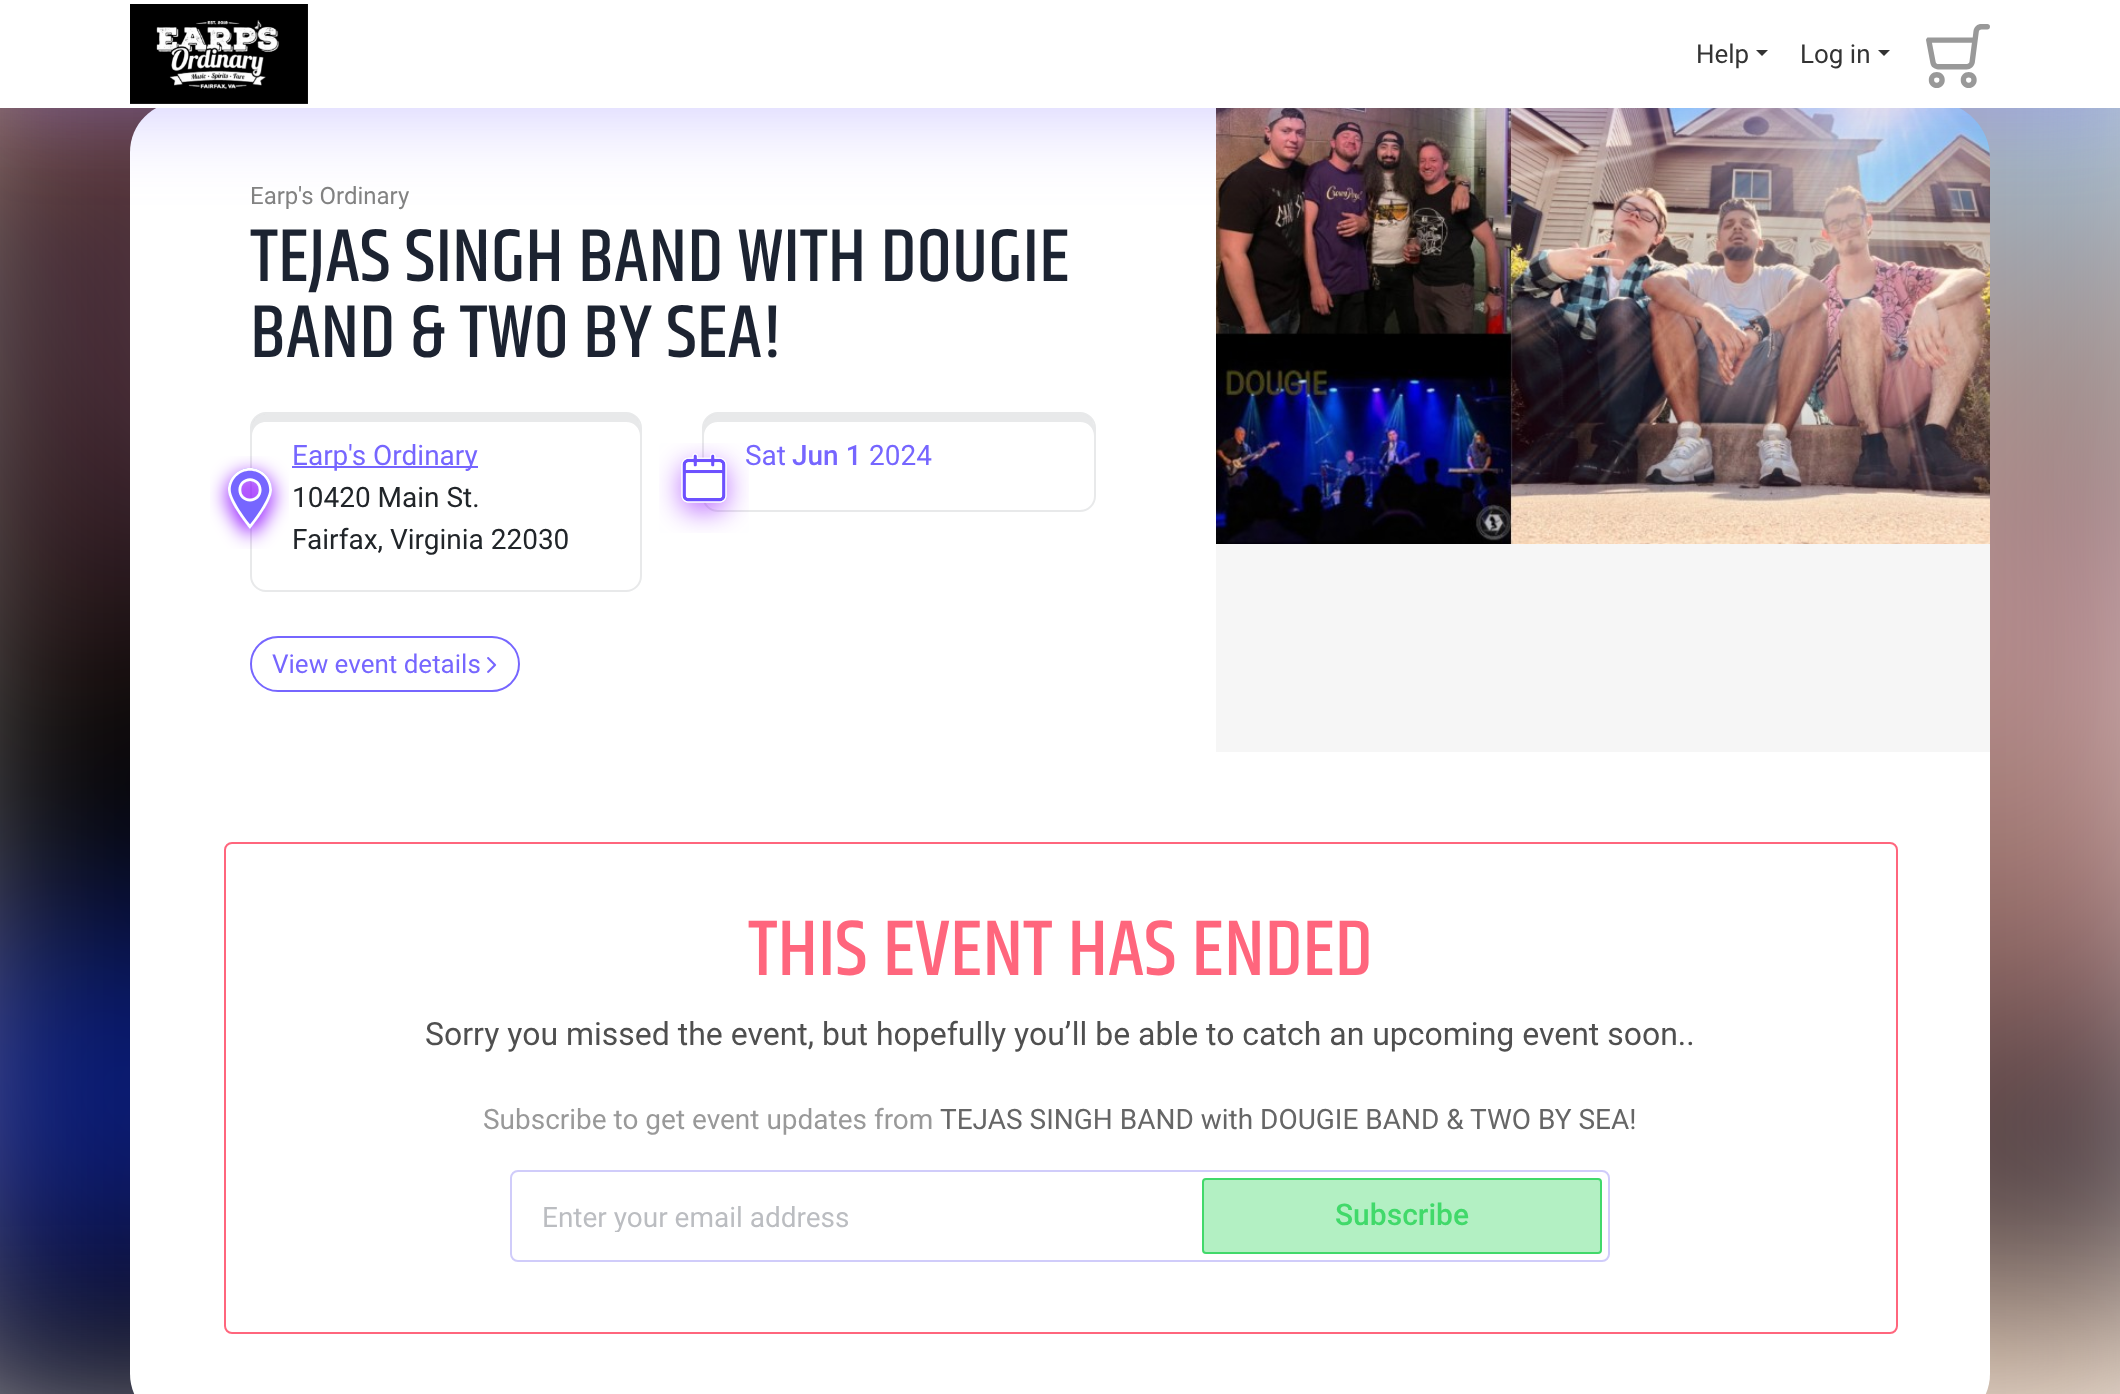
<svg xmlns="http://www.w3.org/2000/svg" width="2120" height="1394">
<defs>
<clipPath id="clip1"><rect x="542" y="1200" width="638" height="32"/></clipPath>
</defs>
<rect width="100%" height="100%" fill="#fff"/>
<image x="0" y="108" width="2120" height="1286" href="media/3.png"/>
<path d="M180 102h1036v650h-1086v-600c0-27.5 22.5-50 50-50z" fill="#fff"/>
<path d="M1216 102h714c33 0 60 27 60 60v590h-774z" fill="#f6f6f6"/>
<image x="1216" y="108" width="774" height="436" href="media/7.png"/>
<rect y="10" width="2120" height="108" fill="#7666ff4f" filter="blur(40px)"/>
<rect width="2120" height="108" fill="#fff"/>
<image x="130" y="4" width="178" height="100" href="media/1.png"/>
<text x="1696" y="63" style="font-family:Roboto;font-size:26px;fill:#333">Help</text>
<path d="M1756 50h12l-6 6z" fill="#333"/>
<text x="1800" y="63" style="font-family:Roboto;font-size:26px;fill:#333">Log in</text>
<path d="M1878 50h12l-6 6z" fill="#333"/>
<image x="1926" y="24" width="64" height="64" href="media/2.png"/>
<text x="250" y="204" style="font-family:Roboto;font-size:24px;fill:#828282">Earp's Ordinary</text>
<text x="250" y="281" style="font-family:Khand;font-size:76px;font-weight:500;fill:#1c2331">TEJAS SINGH BAND WITH DOUGIE</text>
<text x="250" y="357" style="font-family:Khand;font-size:76px;font-weight:500;fill:#1c2331">BAND &amp; TWO BY SEA!</text>
<path d="M266 422h360c8 0 14 6 14 14v-8c0-8-6-14-14-14h-360c-8 0-14 6-14 14v8c0-8 6-14 14-14z" fill="#e8e9ea"/>
<rect x="251" y="413" width="390" height="178" rx="15" fill="none" stroke="#1c23311a" stroke-width="2"/>
<image x="210" y="456" width="79" height="93" href="media/4.png"/>
<rect x="292" y="466" width="186" height="2" fill="#7666ff"/>
<text x="292" y="465" style="font-family:Roboto;font-size:28px;fill:#7666ff">Earp's Ordinary</text>
<text x="292" y="507" style="font-family:Roboto;font-size:28px;fill:#212529">10420 Main St.</text>
<text x="292" y="549" style="font-family:Roboto;font-size:28px;fill:#212529">Fairfax, Virginia 22030</text>
<path d="M718 422h362c8 0 14 6 14 14v-8c0-8-6-14-14-14h-362c-8 0-14 6-14 14v8c0-8 6-14 14-14z" fill="#e8e9ea"/>
<rect x="703" y="413" width="392" height="98" rx="15" fill="none" stroke="#1c23311a" stroke-width="2"/>
<text x="745" y="465" style="font-family:Roboto;font-size:28px;fill:#7666ff">Sat</text>
<image x="659" y="443" width="90" height="90" href="media/5.png"/>
<text x="792" y="465" style="font-family:Roboto;font-size:28px;font-weight:500;fill:#7666ff">Jun 1</text>
<text x="869" y="465" style="font-family:Roboto;font-size:28px;fill:#7666ff">2024</text>
<rect x="251" y="637" width="268" height="54" rx="27" fill="none" stroke="#7666ff" stroke-width="2"/>
<text x="272" y="673" style="font-family:Roboto;font-size:26px;fill:#7666ff">View event details</text>
<image x="487" y="657" width="10" height="16" href="media/6.png"/>
<path d="M130 752h1860v622c0 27.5-22.5 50-50 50h-1760c-27.5 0-50-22.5-50-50z" fill="#fff"/>
<rect x="225" y="843" width="1672" height="490" rx="7" fill="none" stroke="#ff667d" stroke-width="2"/>
<text x="748" y="975" style="font-family:Khand;font-size:80px;font-weight:500;fill:#ff667d">THIS EVENT HAS ENDED</text>
<text x="425" y="1045" style="font-family:Roboto;font-size:32px;fill:#4f4f4f">Sorry you missed the event, but hopefully you’ll be able to catch an upcoming event soon..</text>
<text x="483" y="1129" style="font-family:Roboto;font-size:28px;fill:#999">Subscribe to get event updates from</text>
<text x="940" y="1129" style="font-family:Roboto;font-size:28px;fill:#666">TEJAS SINGH BAND with DOUGIE BAND &amp; TWO BY SEA!</text>
<rect x="511" y="1171" width="1098" height="90" rx="7" fill="none" stroke="#d0ccfa" stroke-width="2"/>
<g clip-path="url(#clip1)">
<text x="542" y="1227" style="font-family:Roboto;font-size:28px;fill:#bbbdc1">Enter your email address</text>
</g>
<rect x="1203" y="1179" width="398" height="74" rx="3" fill="#b3f0c3" stroke="#41d96a" stroke-width="2"/>
<text x="1335" y="1225" style="font-family:Roboto;font-size:30px;font-weight:500;fill:#41d96a">Subscribe</text>
</svg>
